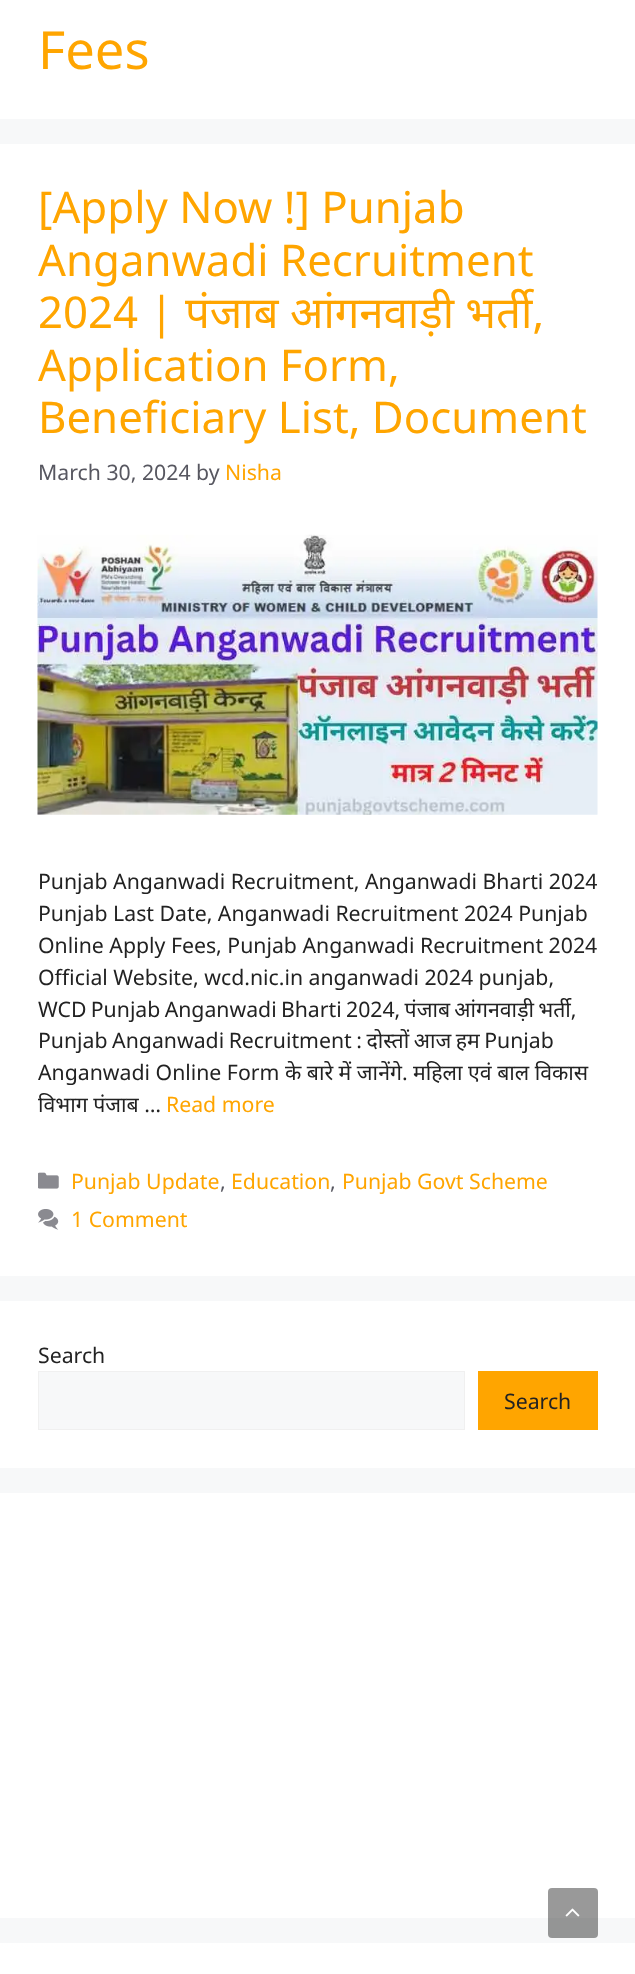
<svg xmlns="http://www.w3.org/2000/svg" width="635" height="1974">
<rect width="100%" height="100%" fill="#f7f8f9"/>
<rect width="635" height="119" fill="#fff"/>
<text x="38" y="69" style="font-family:Noto Sans;font-size:52.5px;fill:#ffa500">Fees</text>
<rect y="144" width="635" height="1132" fill="#fff"/>
<text x="38" y="223" style="font-family:Noto Sans;font-size:43.75px;fill:#ffa500">[Apply Now !] Punjab</text>
<text x="38" y="276" style="font-family:Noto Sans;font-size:43.75px;fill:#ffa500">Anganwadi Recruitment</text>
<text x="38" y="328" style="font-family:Noto Sans;font-size:43.75px;fill:#ffa500">2024 | पंजाब आंगनवाड़ी भर्ती,</text>
<text x="38" y="381" style="font-family:Noto Sans;font-size:43.75px;fill:#ffa500">Application Form,</text>
<text x="38" y="433" style="font-family:Noto Sans;font-size:43.75px;fill:#ffa500">Beneficiary List, Document</text>
<text x="38" y="480" style="font-family:Noto Sans;font-size:21.25px;fill:#575760">March 30, 2024 by</text>
<text x="225" y="480" style="font-family:Noto Sans;font-size:21.25px;fill:#ffa500">Nisha</text>
<image x="37" y="534" width="561" height="281" href="media/1.png"/>
<text x="38" y="889" style="font-family:Noto Sans;font-size:21.25px;fill:#222">Punjab Anganwadi Recruitment, Anganwadi Bharti 2024</text>
<text x="38" y="921" style="font-family:Noto Sans;font-size:21.25px;fill:#222">Punjab Last Date, Anganwadi Recruitment 2024 Punjab</text>
<text x="38" y="953" style="font-family:Noto Sans;font-size:21.25px;fill:#222">Online Apply Fees, Punjab Anganwadi Recruitment 2024</text>
<text x="38" y="985" style="font-family:Noto Sans;font-size:21.25px;fill:#222">Official Website, wcd.nic.in anganwadi 2024 punjab,</text>
<text x="38" y="1017" word-spacing="-1.25" style="font-family:Noto Sans;font-size:21.25px;fill:#222">WCD Punjab Anganwadi Bharti 2024, पंजाब आंगनवाड़ी भर्ती,</text>
<text x="38" y="1048" word-spacing="-1" style="font-family:Noto Sans;font-size:21.25px;fill:#222">Punjab Anganwadi Recruitment : दोस्तों आज हम Punjab</text>
<text x="38" y="1080" style="font-family:Noto Sans;font-size:21.25px;fill:#222">Anganwadi Online Form के बारे में जानेंगे. महिला एवं बाल विकास</text>
<text x="38" y="1112" style="font-family:Noto Sans;font-size:21.25px;fill:#222">विभाग पंजाब …</text>
<text x="166" y="1112" style="font-family:Noto Sans;font-size:21.25px;fill:#ffa500">Read more</text>
<image x="38" y="1172" width="21" height="17" href="media/2.png"/>
<text x="71" y="1189" style="font-family:Noto Sans;font-size:21.25px;fill:#ffa500">Punjab Update</text>
<text x="220" y="1189" style="font-family:Noto Sans;font-size:21.25px;fill:#575760">,</text>
<text x="231" y="1189" style="font-family:Noto Sans;font-size:21.25px;fill:#ffa500">Education</text>
<text x="330" y="1189" style="font-family:Noto Sans;font-size:21.25px;fill:#575760">,</text>
<text x="342" y="1189" style="font-family:Noto Sans;font-size:21.25px;fill:#ffa500">Punjab Govt Scheme</text>
<image x="38" y="1209" width="21" height="21" href="media/3.png"/>
<text x="71" y="1227" style="font-family:Noto Sans;font-size:21.25px;fill:#ffa500">1 Comment</text>
<rect y="1301" width="635" height="167" fill="#fff"/>
<text x="38" y="1363" style="font-family:Noto Sans;font-size:21.25px;fill:#222">Search</text>
<rect x="38.5" y="1371.5" width="426" height="58" fill="#f7f8f9" stroke="#f0f0f0"/>
<rect x="478" y="1371" width="120" height="59" fill="#ffa500"/>
<text x="504" y="1409" style="font-family:Noto Sans;font-size:21.25px;fill:#222">Search</text>
<rect y="1493" width="635" height="425" fill="#fff"/>
<rect y="1943" width="635" height="31" fill="#fff"/>
<rect x="548" y="1888" width="50" height="50" rx="4" fill="#00000066"/>
<image x="565" y="1908" width="15" height="9" href="media/4.png"/>
</svg>
